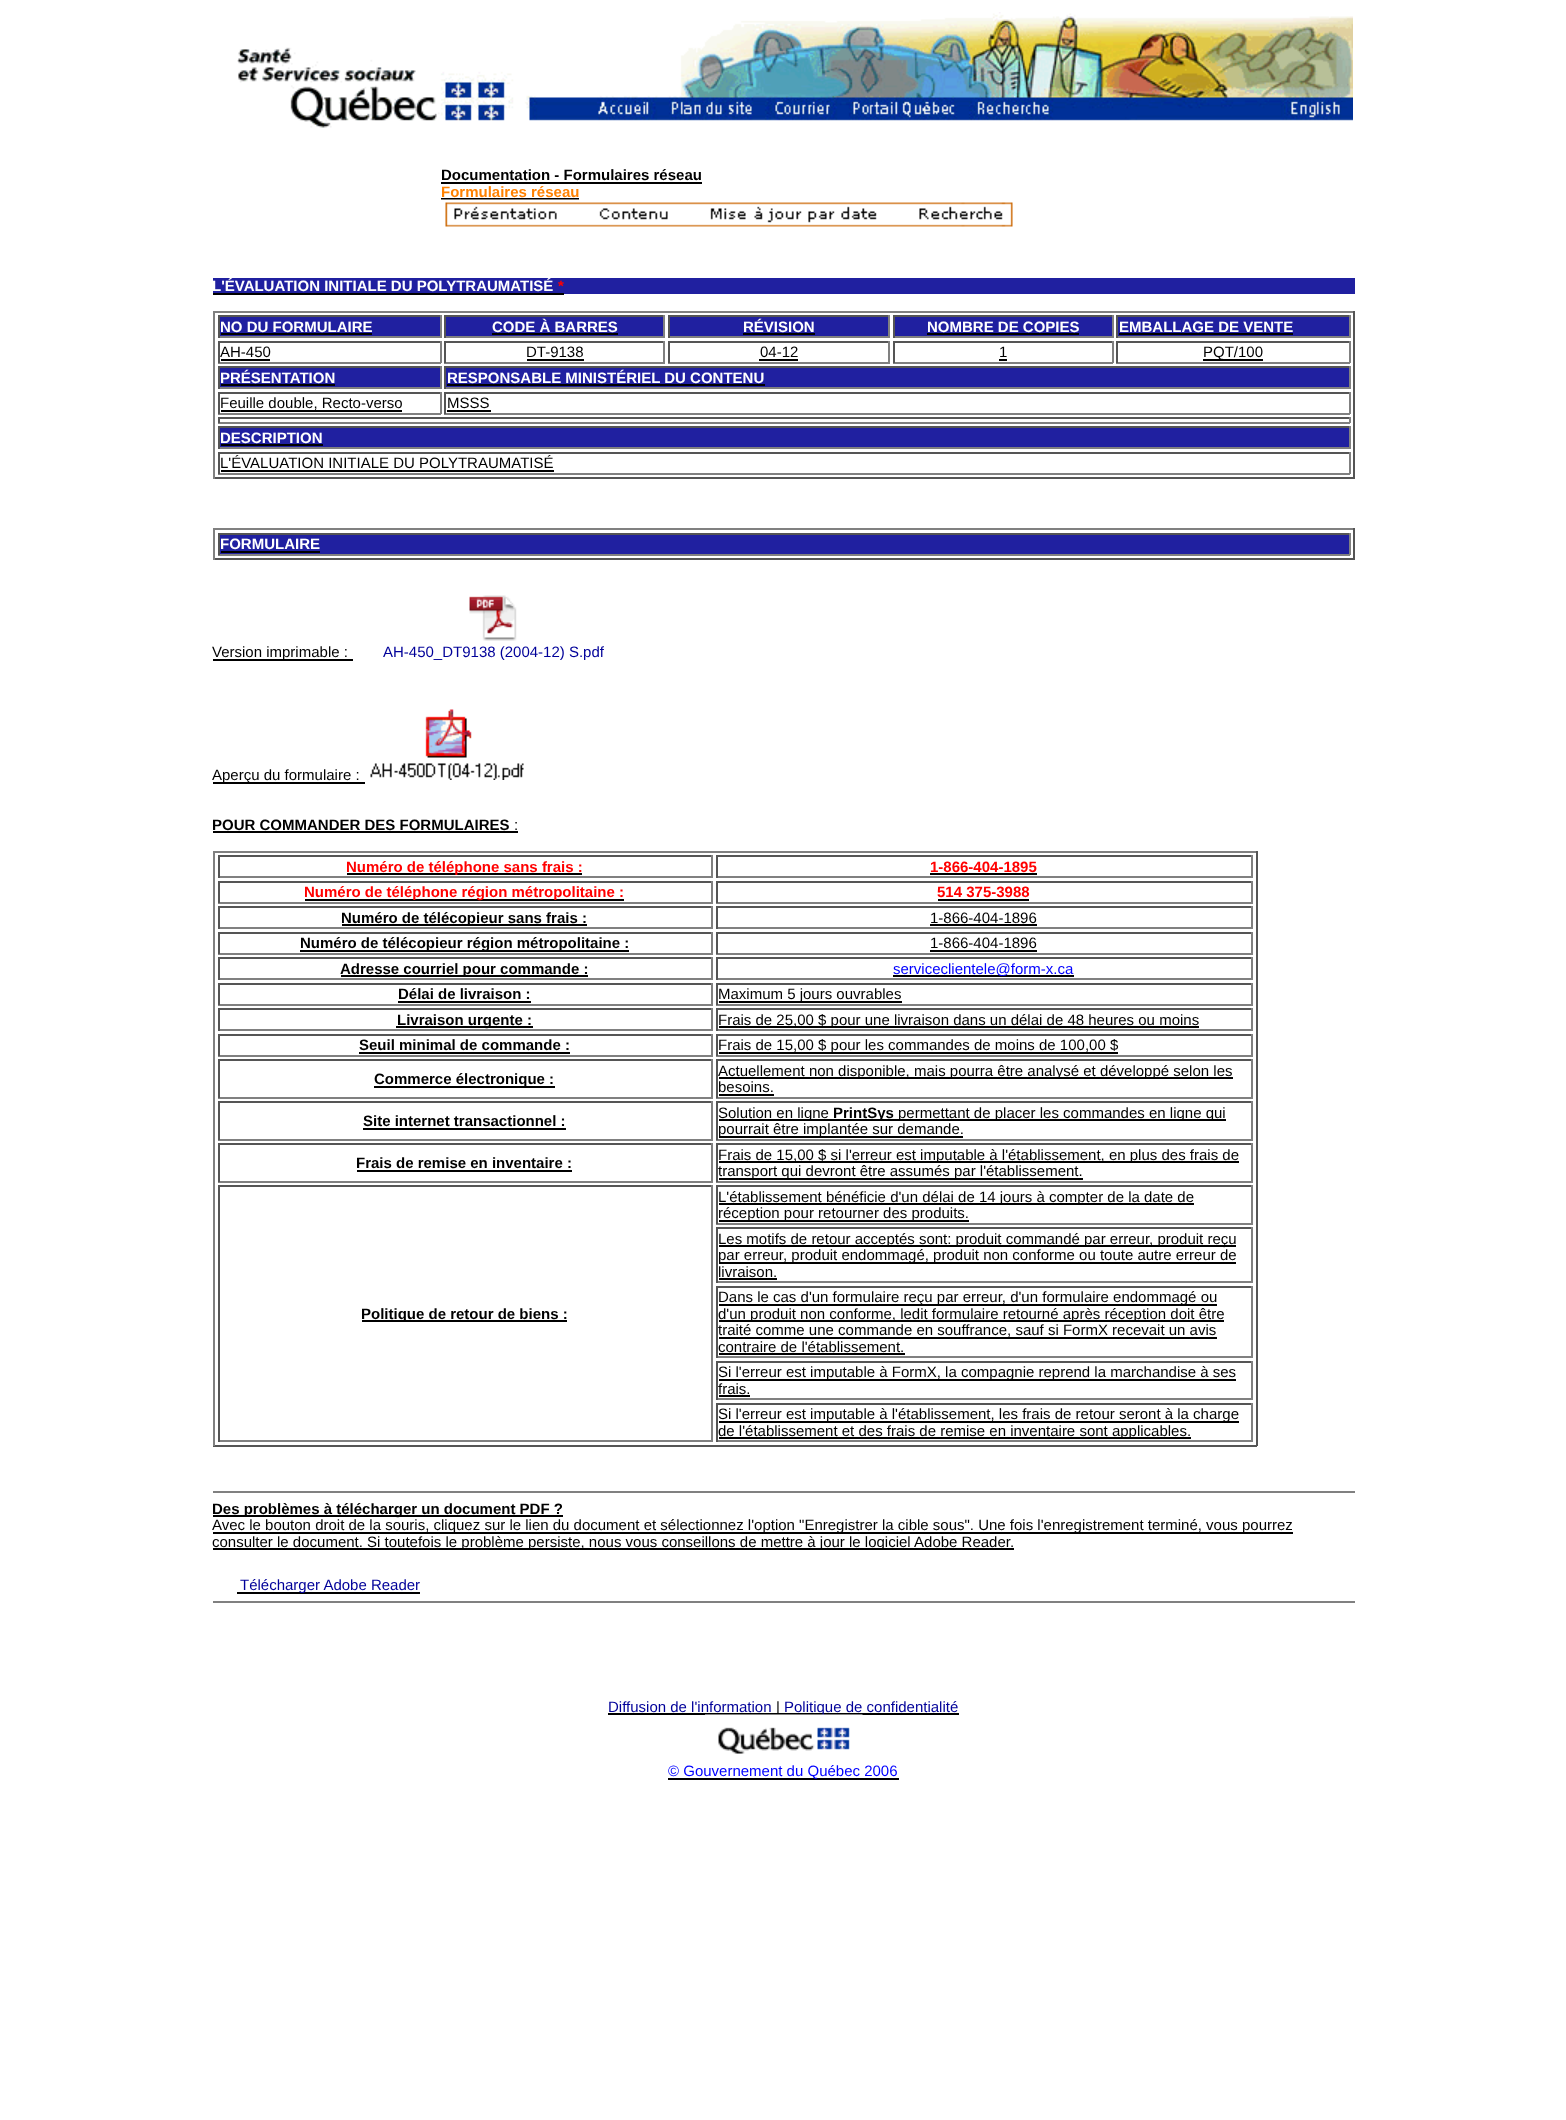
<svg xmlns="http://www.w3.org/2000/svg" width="1566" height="2120">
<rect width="100%" height="100%" fill="#fff"/>
<image x="237" y="12" width="1116" height="116" href="media/1.png"/>
<text x="441" y="180" style="font-family:Liberation Sans;font-size:15px;font-weight:bold;fill:#000">Documentation - Formulaires réseau</text>
<rect x="441" y="182" width="261" height="2" fill="#000"/>
<text x="441" y="197" style="font-family:Liberation Sans;font-size:15px;font-weight:bold;fill:#ff8100">Formulaires réseau</text>
<rect x="441" y="198" width="138" height="2" fill="#000"/>
<image x="441" y="199" width="572" height="28" href="media/2.png"/>
<rect x="213" y="278" width="1142" height="16" fill="#2020a0"/>
<text x="212" y="291" style="font-family:Liberation Sans;font-size:15px;font-weight:bold;fill:#fff">L'ÉVALUATION INITIALE DU POLYTRAUMATISÉ</text>
<rect x="213" y="293" width="351" height="2" fill="#000"/>
<text x="558" y="291" style="font-family:Liberation Sans;font-size:15px;font-weight:bold;fill:#f00">*</text>
<rect x="213" y="311" width="1142" height="2" fill="#808080"/>
<rect x="1353" y="311" width="2" height="168" fill="#555"/>
<rect x="213" y="477" width="1142" height="2" fill="#555"/>
<rect x="213" y="311" width="2" height="168" fill="#808080"/>
<rect x="220" y="317" width="220" height="19" fill="#2020a0"/>
<rect x="218" y="315" width="223" height="2" fill="#555"/>
<rect x="440" y="315" width="2" height="23" fill="#808080"/>
<rect x="218" y="336" width="223" height="2" fill="#808080"/>
<rect x="218" y="315" width="2" height="23" fill="#555"/>
<text x="220" y="332" style="font-family:Liberation Sans;font-size:15px;font-weight:bold;fill:#fff">NO DU FORMULAIRE</text>
<rect x="221" y="333" width="151" height="2" fill="#000"/>
<rect x="446" y="317" width="217" height="19" fill="#2020a0"/>
<rect x="444" y="315" width="221" height="2" fill="#555"/>
<rect x="663" y="315" width="2" height="23" fill="#808080"/>
<rect x="444" y="336" width="221" height="2" fill="#808080"/>
<rect x="444" y="315" width="2" height="23" fill="#555"/>
<text x="492" y="332" style="font-family:Liberation Sans;font-size:15px;font-weight:bold;fill:#fff">CODE À BARRES</text>
<rect x="492" y="333" width="126" height="2" fill="#000"/>
<rect x="670" y="317" width="218" height="19" fill="#2020a0"/>
<rect x="668" y="315" width="222" height="2" fill="#555"/>
<rect x="888" y="315" width="2" height="23" fill="#808080"/>
<rect x="668" y="336" width="222" height="2" fill="#808080"/>
<rect x="668" y="315" width="2" height="23" fill="#555"/>
<text x="743" y="332" style="font-family:Liberation Sans;font-size:15px;font-weight:bold;fill:#fff">RÉVISION</text>
<rect x="743" y="333" width="72" height="2" fill="#000"/>
<rect x="895" y="317" width="217" height="19" fill="#2020a0"/>
<rect x="893" y="315" width="220" height="2" fill="#555"/>
<rect x="1112" y="315" width="2" height="23" fill="#808080"/>
<rect x="893" y="336" width="220" height="2" fill="#808080"/>
<rect x="893" y="315" width="2" height="23" fill="#555"/>
<text x="927" y="332" style="font-family:Liberation Sans;font-size:15px;font-weight:bold;fill:#fff">NOMBRE DE COPIES</text>
<rect x="927" y="333" width="152" height="2" fill="#000"/>
<rect x="1118" y="317" width="231" height="19" fill="#2020a0"/>
<rect x="1116" y="315" width="234" height="2" fill="#555"/>
<rect x="1349" y="315" width="2" height="23" fill="#808080"/>
<rect x="1116" y="336" width="234" height="2" fill="#808080"/>
<rect x="1116" y="315" width="2" height="23" fill="#555"/>
<text x="1119" y="332" style="font-family:Liberation Sans;font-size:15px;font-weight:bold;fill:#fff">EMBALLAGE DE VENTE</text>
<rect x="1119" y="333" width="174" height="2" fill="#000"/>
<rect x="218" y="341" width="223" height="2" fill="#555"/>
<rect x="440" y="341" width="2" height="22" fill="#808080"/>
<rect x="218" y="362" width="223" height="2" fill="#808080"/>
<rect x="218" y="341" width="2" height="22" fill="#555"/>
<text x="220" y="357" style="font-family:Liberation Sans;font-size:15px;fill:#000">AH-450</text>
<rect x="221" y="359" width="49" height="2" fill="#000"/>
<rect x="444" y="341" width="221" height="2" fill="#555"/>
<rect x="663" y="341" width="2" height="22" fill="#808080"/>
<rect x="444" y="362" width="221" height="2" fill="#808080"/>
<rect x="444" y="341" width="2" height="22" fill="#555"/>
<text x="526" y="357" style="font-family:Liberation Sans;font-size:15px;fill:#000">DT-9138</text>
<rect x="527" y="359" width="57" height="2" fill="#000"/>
<rect x="668" y="341" width="222" height="2" fill="#555"/>
<rect x="888" y="341" width="2" height="22" fill="#808080"/>
<rect x="668" y="362" width="222" height="2" fill="#808080"/>
<rect x="668" y="341" width="2" height="22" fill="#555"/>
<text x="760" y="357" style="font-family:Liberation Sans;font-size:15px;fill:#000">04-12</text>
<rect x="759" y="359" width="39" height="2" fill="#000"/>
<rect x="893" y="341" width="220" height="2" fill="#555"/>
<rect x="1112" y="341" width="2" height="22" fill="#808080"/>
<rect x="893" y="362" width="220" height="2" fill="#808080"/>
<rect x="893" y="341" width="2" height="22" fill="#555"/>
<text x="999" y="357" style="font-family:Liberation Sans;font-size:15px;fill:#000">1</text>
<rect x="999" y="359" width="8" height="2" fill="#000"/>
<rect x="1116" y="341" width="234" height="2" fill="#555"/>
<rect x="1349" y="341" width="2" height="22" fill="#808080"/>
<rect x="1116" y="362" width="234" height="2" fill="#808080"/>
<rect x="1116" y="341" width="2" height="22" fill="#555"/>
<rect x="1203" y="359" width="60" height="2" fill="#000"/>
<text x="1203" y="357" style="font-family:Liberation Sans;font-size:15px;fill:#000">PQT/100</text>
<rect x="220" y="368" width="220" height="19" fill="#2020a0"/>
<rect x="218" y="366" width="223" height="2" fill="#555"/>
<rect x="440" y="366" width="2" height="23" fill="#808080"/>
<rect x="218" y="387" width="223" height="2" fill="#808080"/>
<rect x="218" y="366" width="2" height="23" fill="#555"/>
<text x="220" y="383" style="font-family:Liberation Sans;font-size:15px;font-weight:bold;fill:#fff">PRÉSENTATION</text>
<rect x="221" y="384" width="114" height="2" fill="#000"/>
<rect x="446" y="368" width="903" height="19" fill="#2020a0"/>
<rect x="444" y="366" width="906" height="2" fill="#555"/>
<rect x="1349" y="366" width="2" height="23" fill="#808080"/>
<rect x="444" y="387" width="906" height="2" fill="#808080"/>
<rect x="444" y="366" width="2" height="23" fill="#555"/>
<text x="447" y="383" style="font-family:Liberation Sans;font-size:15px;font-weight:bold;fill:#fff">RESPONSABLE MINISTÉRIEL DU CONTENU</text>
<rect x="447" y="384" width="318" height="2" fill="#000"/>
<rect x="218" y="392" width="223" height="2" fill="#555"/>
<rect x="440" y="392" width="2" height="22" fill="#808080"/>
<rect x="218" y="413" width="223" height="2" fill="#808080"/>
<rect x="218" y="392" width="2" height="22" fill="#555"/>
<text x="220" y="408" style="font-family:Liberation Sans;font-size:15px;fill:#000">Feuille double, Recto-verso</text>
<rect x="221" y="410" width="181" height="2" fill="#000"/>
<rect x="444" y="392" width="906" height="2" fill="#555"/>
<rect x="1349" y="392" width="2" height="22" fill="#808080"/>
<rect x="444" y="413" width="906" height="2" fill="#808080"/>
<rect x="444" y="392" width="2" height="22" fill="#555"/>
<text x="447" y="408" style="font-family:Liberation Sans;font-size:15px;fill:#000">MSSS</text>
<rect x="447" y="410" width="44" height="2" fill="#000"/>
<rect x="218" y="417" width="1132" height="2" fill="#555"/>
<rect x="1349" y="417" width="2" height="6" fill="#808080"/>
<rect x="218" y="422" width="1132" height="2" fill="#808080"/>
<rect x="218" y="417" width="2" height="6" fill="#555"/>
<rect x="220" y="428" width="1129" height="19" fill="#2020a0"/>
<rect x="218" y="426" width="1132" height="2" fill="#555"/>
<rect x="1349" y="426" width="2" height="23" fill="#808080"/>
<rect x="218" y="447" width="1132" height="2" fill="#808080"/>
<rect x="218" y="426" width="2" height="23" fill="#555"/>
<text x="220" y="443" style="font-family:Liberation Sans;font-size:15px;font-weight:bold;fill:#fff">DESCRIPTION</text>
<rect x="221" y="444" width="102" height="2" fill="#000"/>
<rect x="218" y="452" width="1132" height="2" fill="#555"/>
<rect x="1349" y="452" width="2" height="22" fill="#808080"/>
<rect x="218" y="473" width="1132" height="2" fill="#808080"/>
<rect x="218" y="452" width="2" height="22" fill="#555"/>
<text x="220" y="468" style="font-family:Liberation Sans;font-size:15px;fill:#000">L'ÉVALUATION INITIALE DU POLYTRAUMATISÉ</text>
<rect x="221" y="470" width="333" height="2" fill="#000"/>
<rect x="213" y="528" width="1142" height="2" fill="#808080"/>
<rect x="1353" y="528" width="2" height="32" fill="#555"/>
<rect x="213" y="558" width="1142" height="2" fill="#555"/>
<rect x="213" y="528" width="2" height="32" fill="#808080"/>
<rect x="220" y="535" width="1129" height="19" fill="#2020a0"/>
<rect x="218" y="533" width="1132" height="2" fill="#555"/>
<rect x="1349" y="533" width="2" height="22" fill="#808080"/>
<rect x="218" y="554" width="1132" height="2" fill="#808080"/>
<rect x="218" y="533" width="2" height="22" fill="#555"/>
<text x="220" y="549" style="font-family:Liberation Sans;font-size:15px;font-weight:bold;fill:#fff">FORMULAIRE</text>
<rect x="221" y="551" width="99" height="2" fill="#000"/>
<rect x="213" y="659" width="140" height="2" fill="#000"/>
<text x="212" y="657" style="font-family:Liberation Sans;font-size:15px;fill:#000">Version imprimable :</text>
<image x="469" y="595" width="48" height="46" href="media/3.png"/>
<text x="383" y="657" style="font-family:Liberation Sans;font-size:15px;fill:#009">AH-450_DT9138 (2004-12) S.pdf</text>
<rect x="213" y="782" width="152" height="2" fill="#000"/>
<text x="212" y="780" style="font-family:Liberation Sans;font-size:15px;fill:#000">Aperçu du formulaire :</text>
<image x="370" y="709" width="154" height="71" href="media/4.png"/>
<text x="212" y="830" style="font-family:Liberation Sans;font-size:15px;font-weight:bold;fill:#000">POUR COMMANDER DES FORMULAIRES</text>
<rect x="213" y="831" width="305" height="2" fill="#000"/>
<text x="514" y="830" style="font-family:Liberation Sans;font-size:15px;fill:#000">:</text>
<rect x="213" y="851" width="1044" height="2" fill="#808080"/>
<rect x="1256" y="851" width="2" height="595" fill="#555"/>
<rect x="213" y="1445" width="1044" height="2" fill="#555"/>
<rect x="213" y="851" width="2" height="595" fill="#808080"/>
<rect x="218" y="855" width="495" height="2" fill="#555"/>
<rect x="711" y="855" width="2" height="23" fill="#808080"/>
<rect x="218" y="876" width="495" height="2" fill="#808080"/>
<rect x="218" y="855" width="2" height="23" fill="#555"/>
<rect x="347" y="873" width="235" height="2" fill="#000"/>
<text x="346" y="872" style="font-family:Liberation Sans;font-size:15px;font-weight:bold;fill:#f00">Numéro de téléphone sans frais :</text>
<rect x="716" y="855" width="537" height="2" fill="#555"/>
<rect x="1251" y="855" width="2" height="23" fill="#808080"/>
<rect x="716" y="876" width="537" height="2" fill="#808080"/>
<rect x="716" y="855" width="2" height="23" fill="#555"/>
<text x="930" y="872" style="font-family:Liberation Sans;font-size:15px;font-weight:bold;fill:#f00">1-866-404-1895</text>
<rect x="930" y="873" width="107" height="2" fill="#000"/>
<rect x="218" y="881" width="495" height="2" fill="#555"/>
<rect x="711" y="881" width="2" height="22" fill="#808080"/>
<rect x="218" y="902" width="495" height="2" fill="#808080"/>
<rect x="218" y="881" width="2" height="22" fill="#555"/>
<rect x="305" y="899" width="319" height="2" fill="#000"/>
<text x="304" y="897" style="font-family:Liberation Sans;font-size:15px;font-weight:bold;fill:#f00">Numéro de téléphone région métropolitaine :</text>
<rect x="716" y="881" width="537" height="2" fill="#555"/>
<rect x="1251" y="881" width="2" height="22" fill="#808080"/>
<rect x="716" y="902" width="537" height="2" fill="#808080"/>
<rect x="716" y="881" width="2" height="22" fill="#555"/>
<text x="937" y="897" style="font-family:Liberation Sans;font-size:15px;font-weight:bold;fill:#f00">514 375-3988</text>
<rect x="938" y="899" width="91" height="2" fill="#000"/>
<rect x="218" y="906" width="495" height="2" fill="#555"/>
<rect x="711" y="906" width="2" height="23" fill="#808080"/>
<rect x="218" y="927" width="495" height="2" fill="#808080"/>
<rect x="218" y="906" width="2" height="23" fill="#555"/>
<rect x="342" y="924" width="245" height="2" fill="#000"/>
<text x="341" y="923" style="font-family:Liberation Sans;font-size:15px;font-weight:bold;fill:#000">Numéro de télécopieur sans frais :</text>
<rect x="716" y="906" width="537" height="2" fill="#555"/>
<rect x="1251" y="906" width="2" height="23" fill="#808080"/>
<rect x="716" y="927" width="537" height="2" fill="#808080"/>
<rect x="716" y="906" width="2" height="23" fill="#555"/>
<text x="930" y="923" style="font-family:Liberation Sans;font-size:15px;fill:#000">1-866-404-1896</text>
<rect x="930" y="924" width="107" height="2" fill="#000"/>
<rect x="218" y="932" width="495" height="2" fill="#555"/>
<rect x="711" y="932" width="2" height="22" fill="#808080"/>
<rect x="218" y="953" width="495" height="2" fill="#808080"/>
<rect x="218" y="932" width="2" height="22" fill="#555"/>
<rect x="300" y="950" width="329" height="2" fill="#000"/>
<text x="300" y="948" style="font-family:Liberation Sans;font-size:15px;font-weight:bold;fill:#000">Numéro de télécopieur région métropolitaine :</text>
<rect x="716" y="932" width="537" height="2" fill="#555"/>
<rect x="1251" y="932" width="2" height="22" fill="#808080"/>
<rect x="716" y="953" width="537" height="2" fill="#808080"/>
<rect x="716" y="932" width="2" height="22" fill="#555"/>
<text x="930" y="948" style="font-family:Liberation Sans;font-size:15px;fill:#000">1-866-404-1896</text>
<rect x="930" y="950" width="107" height="2" fill="#000"/>
<rect x="218" y="957" width="495" height="2" fill="#555"/>
<rect x="711" y="957" width="2" height="23" fill="#808080"/>
<rect x="218" y="978" width="495" height="2" fill="#808080"/>
<rect x="218" y="957" width="2" height="23" fill="#555"/>
<rect x="341" y="975" width="247" height="2" fill="#000"/>
<text x="340" y="974" style="font-family:Liberation Sans;font-size:15px;font-weight:bold;fill:#000">Adresse courriel pour commande :</text>
<rect x="716" y="957" width="537" height="2" fill="#555"/>
<rect x="1251" y="957" width="2" height="23" fill="#808080"/>
<rect x="716" y="978" width="537" height="2" fill="#808080"/>
<rect x="716" y="957" width="2" height="23" fill="#555"/>
<rect x="893" y="975" width="181" height="2" fill="#000"/>
<text x="893" y="974" style="font-family:Liberation Sans;font-size:15px;fill:#00f">serviceclientele@form-x.ca</text>
<rect x="218" y="983" width="495" height="2" fill="#555"/>
<rect x="711" y="983" width="2" height="22" fill="#808080"/>
<rect x="218" y="1004" width="495" height="2" fill="#808080"/>
<rect x="218" y="983" width="2" height="22" fill="#555"/>
<text x="398" y="999" style="font-family:Liberation Sans;font-size:15px;font-weight:bold;fill:#000">Délai de livraison :</text>
<rect x="398" y="1001" width="133" height="2" fill="#000"/>
<rect x="716" y="983" width="537" height="2" fill="#555"/>
<rect x="1251" y="983" width="2" height="22" fill="#808080"/>
<rect x="716" y="1004" width="537" height="2" fill="#808080"/>
<rect x="716" y="983" width="2" height="22" fill="#555"/>
<rect x="719" y="1001" width="183" height="2" fill="#000"/>
<text x="718" y="999" style="font-family:Liberation Sans;font-size:15px;fill:#000">Maximum 5 jours ouvrables</text>
<rect x="218" y="1008" width="495" height="2" fill="#555"/>
<rect x="711" y="1008" width="2" height="23" fill="#808080"/>
<rect x="218" y="1029" width="495" height="2" fill="#808080"/>
<rect x="218" y="1008" width="2" height="23" fill="#555"/>
<rect x="396" y="1026" width="137" height="2" fill="#000"/>
<text x="397" y="1025" style="font-family:Liberation Sans;font-size:15px;font-weight:bold;fill:#000">Livraison urgente :</text>
<rect x="716" y="1008" width="537" height="2" fill="#555"/>
<rect x="1251" y="1008" width="2" height="23" fill="#808080"/>
<rect x="716" y="1029" width="537" height="2" fill="#808080"/>
<rect x="716" y="1008" width="2" height="23" fill="#555"/>
<rect x="719" y="1026" width="480" height="2" fill="#000"/>
<text x="718" y="1025" style="font-family:Liberation Sans;font-size:15px;fill:#000">Frais de 25,00 $ pour une livraison dans un délai de 48 heures ou moins</text>
<rect x="218" y="1034" width="495" height="2" fill="#555"/>
<rect x="711" y="1034" width="2" height="22" fill="#808080"/>
<rect x="218" y="1055" width="495" height="2" fill="#808080"/>
<rect x="218" y="1034" width="2" height="22" fill="#555"/>
<text x="359" y="1050" style="font-family:Liberation Sans;font-size:15px;font-weight:bold;fill:#000">Seuil minimal de commande :</text>
<rect x="359" y="1052" width="211" height="2" fill="#000"/>
<rect x="716" y="1034" width="537" height="2" fill="#555"/>
<rect x="1251" y="1034" width="2" height="22" fill="#808080"/>
<rect x="716" y="1055" width="537" height="2" fill="#808080"/>
<rect x="716" y="1034" width="2" height="22" fill="#555"/>
<rect x="719" y="1052" width="399" height="2" fill="#000"/>
<text x="718" y="1050" style="font-family:Liberation Sans;font-size:15px;fill:#000">Frais de 15,00 $ pour les commandes de moins de 100,00 $</text>
<rect x="218" y="1059" width="495" height="2" fill="#555"/>
<rect x="711" y="1059" width="2" height="39" fill="#808080"/>
<rect x="218" y="1097" width="495" height="2" fill="#808080"/>
<rect x="218" y="1059" width="2" height="39" fill="#555"/>
<rect x="374" y="1086" width="181" height="2" fill="#000"/>
<text x="374" y="1084" style="font-family:Liberation Sans;font-size:15px;font-weight:bold;fill:#000">Commerce électronique :</text>
<rect x="716" y="1059" width="537" height="2" fill="#555"/>
<rect x="1251" y="1059" width="2" height="39" fill="#808080"/>
<rect x="716" y="1097" width="537" height="2" fill="#808080"/>
<rect x="716" y="1059" width="2" height="39" fill="#555"/>
<rect x="719" y="1077" width="514" height="2" fill="#000"/>
<text x="718" y="1076" style="font-family:Liberation Sans;font-size:15px;fill:#000">Actuellement non disponible, mais pourra être analysé et développé selon les</text>
<text x="718" y="1092" style="font-family:Liberation Sans;font-size:15px;fill:#000">besoins.</text>
<rect x="719" y="1094" width="55" height="2" fill="#000"/>
<rect x="218" y="1101" width="495" height="2" fill="#555"/>
<rect x="711" y="1101" width="2" height="39" fill="#808080"/>
<rect x="218" y="1139" width="495" height="2" fill="#808080"/>
<rect x="218" y="1101" width="2" height="39" fill="#555"/>
<text x="363" y="1126" style="font-family:Liberation Sans;font-size:15px;font-weight:bold;fill:#000">Site internet transactionnel :</text>
<rect x="363" y="1128" width="203" height="2" fill="#000"/>
<rect x="716" y="1101" width="537" height="2" fill="#555"/>
<rect x="1251" y="1101" width="2" height="39" fill="#808080"/>
<rect x="716" y="1139" width="537" height="2" fill="#808080"/>
<rect x="716" y="1101" width="2" height="39" fill="#555"/>
<rect x="719" y="1119" width="507" height="2" fill="#000"/>
<text x="718" y="1118" style="font-family:Liberation Sans;font-size:15px;fill:#000">Solution en ligne</text>
<text x="833" y="1118" style="font-family:Liberation Sans;font-size:15px;font-weight:bold;fill:#000">PrintSys</text>
<text x="898" y="1118" style="font-family:Liberation Sans;font-size:15px;fill:#000">permettant de placer les commandes en ligne qui</text>
<rect x="719" y="1136" width="244" height="2" fill="#000"/>
<text x="718" y="1134" style="font-family:Liberation Sans;font-size:15px;fill:#000">pourrait être implantée sur demande.</text>
<rect x="218" y="1143" width="495" height="2" fill="#555"/>
<rect x="711" y="1143" width="2" height="39" fill="#808080"/>
<rect x="218" y="1181" width="495" height="2" fill="#808080"/>
<rect x="218" y="1143" width="2" height="39" fill="#555"/>
<text x="356" y="1168" style="font-family:Liberation Sans;font-size:15px;font-weight:bold;fill:#000">Frais de remise en inventaire :</text>
<rect x="357" y="1170" width="215" height="2" fill="#000"/>
<rect x="716" y="1143" width="537" height="2" fill="#555"/>
<rect x="1251" y="1143" width="2" height="39" fill="#808080"/>
<rect x="716" y="1181" width="537" height="2" fill="#808080"/>
<rect x="716" y="1143" width="2" height="39" fill="#555"/>
<rect x="719" y="1161" width="520" height="2" fill="#000"/>
<text x="718" y="1160" style="font-family:Liberation Sans;font-size:15px;fill:#000">Frais de 15,00 $ si l'erreur est imputable à l'établissement, en plus des frais de</text>
<rect x="719" y="1178" width="364" height="2" fill="#000"/>
<text x="718" y="1176" style="font-family:Liberation Sans;font-size:15px;fill:#000">transport qui devront être assumés par l'établissement.</text>
<rect x="716" y="1185" width="537" height="2" fill="#555"/>
<rect x="1251" y="1185" width="2" height="39" fill="#808080"/>
<rect x="716" y="1223" width="537" height="2" fill="#808080"/>
<rect x="716" y="1185" width="2" height="39" fill="#555"/>
<rect x="719" y="1203" width="475" height="2" fill="#000"/>
<text x="718" y="1202" style="font-family:Liberation Sans;font-size:15px;fill:#000">L'établissement bénéficie d'un délai de 14 jours à compter de la date de</text>
<rect x="719" y="1220" width="250" height="2" fill="#000"/>
<text x="718" y="1218" style="font-family:Liberation Sans;font-size:15px;fill:#000">réception pour retourner des produits.</text>
<rect x="218" y="1185" width="495" height="2" fill="#555"/>
<rect x="711" y="1185" width="2" height="257" fill="#808080"/>
<rect x="218" y="1440" width="495" height="2" fill="#808080"/>
<rect x="218" y="1185" width="2" height="257" fill="#555"/>
<rect x="362" y="1320" width="205" height="2" fill="#000"/>
<text x="361" y="1319" style="font-family:Liberation Sans;font-size:15px;font-weight:bold;fill:#000">Politique de retour de biens :</text>
<rect x="716" y="1227" width="537" height="2" fill="#555"/>
<rect x="1251" y="1227" width="2" height="56" fill="#808080"/>
<rect x="716" y="1281" width="537" height="2" fill="#808080"/>
<rect x="716" y="1227" width="2" height="56" fill="#555"/>
<rect x="719" y="1245" width="517" height="2" fill="#000"/>
<text x="718" y="1244" style="font-family:Liberation Sans;font-size:15px;fill:#000">Les motifs de retour acceptés sont: produit commandé par erreur, produit reçu</text>
<rect x="719" y="1262" width="517" height="2" fill="#000"/>
<text x="718" y="1260" style="font-family:Liberation Sans;font-size:15px;fill:#000">par erreur, produit endommagé, produit non conforme ou toute autre erreur de</text>
<text x="718" y="1277" style="font-family:Liberation Sans;font-size:15px;fill:#000">livraison.</text>
<rect x="719" y="1278" width="58" height="2" fill="#000"/>
<rect x="716" y="1286" width="537" height="2" fill="#555"/>
<rect x="1251" y="1286" width="2" height="72" fill="#808080"/>
<rect x="716" y="1356" width="537" height="2" fill="#808080"/>
<rect x="716" y="1286" width="2" height="72" fill="#555"/>
<rect x="719" y="1304" width="498" height="2" fill="#000"/>
<text x="718" y="1302" style="font-family:Liberation Sans;font-size:15px;fill:#000">Dans le cas d'un formulaire reçu par erreur, d'un formulaire endommagé ou</text>
<rect x="719" y="1320" width="505" height="2" fill="#000"/>
<text x="718" y="1319" style="font-family:Liberation Sans;font-size:15px;fill:#000">d'un produit non conforme, ledit formulaire retourné après réception doit être</text>
<text x="718" y="1335" style="font-family:Liberation Sans;font-size:15px;fill:#000">traité comme une commande en souffrance, sauf si FormX recevait un avis</text>
<rect x="719" y="1337" width="498" height="2" fill="#000"/>
<text x="718" y="1352" style="font-family:Liberation Sans;font-size:15px;fill:#000">contraire de l'établissement.</text>
<rect x="719" y="1353" width="186" height="2" fill="#000"/>
<rect x="716" y="1361" width="537" height="2" fill="#555"/>
<rect x="1251" y="1361" width="2" height="39" fill="#808080"/>
<rect x="716" y="1398" width="537" height="2" fill="#808080"/>
<rect x="716" y="1361" width="2" height="39" fill="#555"/>
<rect x="719" y="1379" width="517" height="2" fill="#000"/>
<text x="718" y="1377" style="font-family:Liberation Sans;font-size:15px;fill:#000">Si l'erreur est imputable à FormX, la compagnie reprend la marchandise à ses</text>
<text x="718" y="1394" style="font-family:Liberation Sans;font-size:15px;fill:#000">frais.</text>
<rect x="719" y="1395" width="31" height="2" fill="#000"/>
<rect x="716" y="1403" width="537" height="2" fill="#555"/>
<rect x="1251" y="1403" width="2" height="39" fill="#808080"/>
<rect x="716" y="1440" width="537" height="2" fill="#808080"/>
<rect x="716" y="1403" width="2" height="39" fill="#555"/>
<rect x="719" y="1421" width="520" height="2" fill="#000"/>
<text x="718" y="1419" style="font-family:Liberation Sans;font-size:15px;fill:#000">Si l'erreur est imputable à l'établissement, les frais de retour seront à la charge</text>
<rect x="719" y="1437" width="472" height="2" fill="#000"/>
<text x="718" y="1436" style="font-family:Liberation Sans;font-size:15px;fill:#000">de l'établissement et des frais de remise en inventaire sont applicables.</text>
<rect x="213" y="1491" width="1142" height="2" fill="#808080"/>
<rect x="213" y="1515" width="350" height="2" fill="#000"/>
<text x="212" y="1514" style="font-family:Liberation Sans;font-size:15px;font-weight:bold;fill:#000">Des problèmes à télécharger un document PDF ?</text>
<rect x="213" y="1532" width="1080" height="2" fill="#000"/>
<text x="212" y="1530" style="font-family:Liberation Sans;font-size:15px;fill:#000">Avec le bouton droit de la souris, cliquez sur le lien du document et sélectionnez l'option "Enregistrer la cible sous". Une fois l'enregistrement terminé, vous pourrez</text>
<rect x="213" y="1548" width="801" height="2" fill="#000"/>
<text x="212" y="1547" style="font-family:Liberation Sans;font-size:15px;fill:#000">consulter le document. Si toutefois le problème persiste, nous vous conseillons de mettre à jour le logiciel Adobe Reader.</text>
<rect x="237" y="1592" width="183" height="2" fill="#000"/>
<text x="240" y="1590" style="font-family:Liberation Sans;font-size:15px;fill:#009">Télécharger Adobe Reader</text>
<rect x="213" y="1601" width="1142" height="2" fill="#808080"/>
<text x="608" y="1712" style="font-family:Liberation Sans;font-size:15px;fill:#009">Diffusion de l'information</text>
<rect x="608" y="1713" width="351" height="2" fill="#000"/>
<text x="776" y="1712" style="font-family:Liberation Sans;font-size:15px;fill:#000">|</text>
<text x="784" y="1712" style="font-family:Liberation Sans;font-size:15px;fill:#009">Politique de confidentialité</text>
<image x="705" y="1714" width="158" height="40" href="media/5.png"/>
<rect x="668" y="1778" width="231" height="2" fill="#000"/>
<text x="668" y="1776" style="font-family:Liberation Sans;font-size:15px;fill:#00f">© Gouvernement du Québec 2006</text>
</svg>
